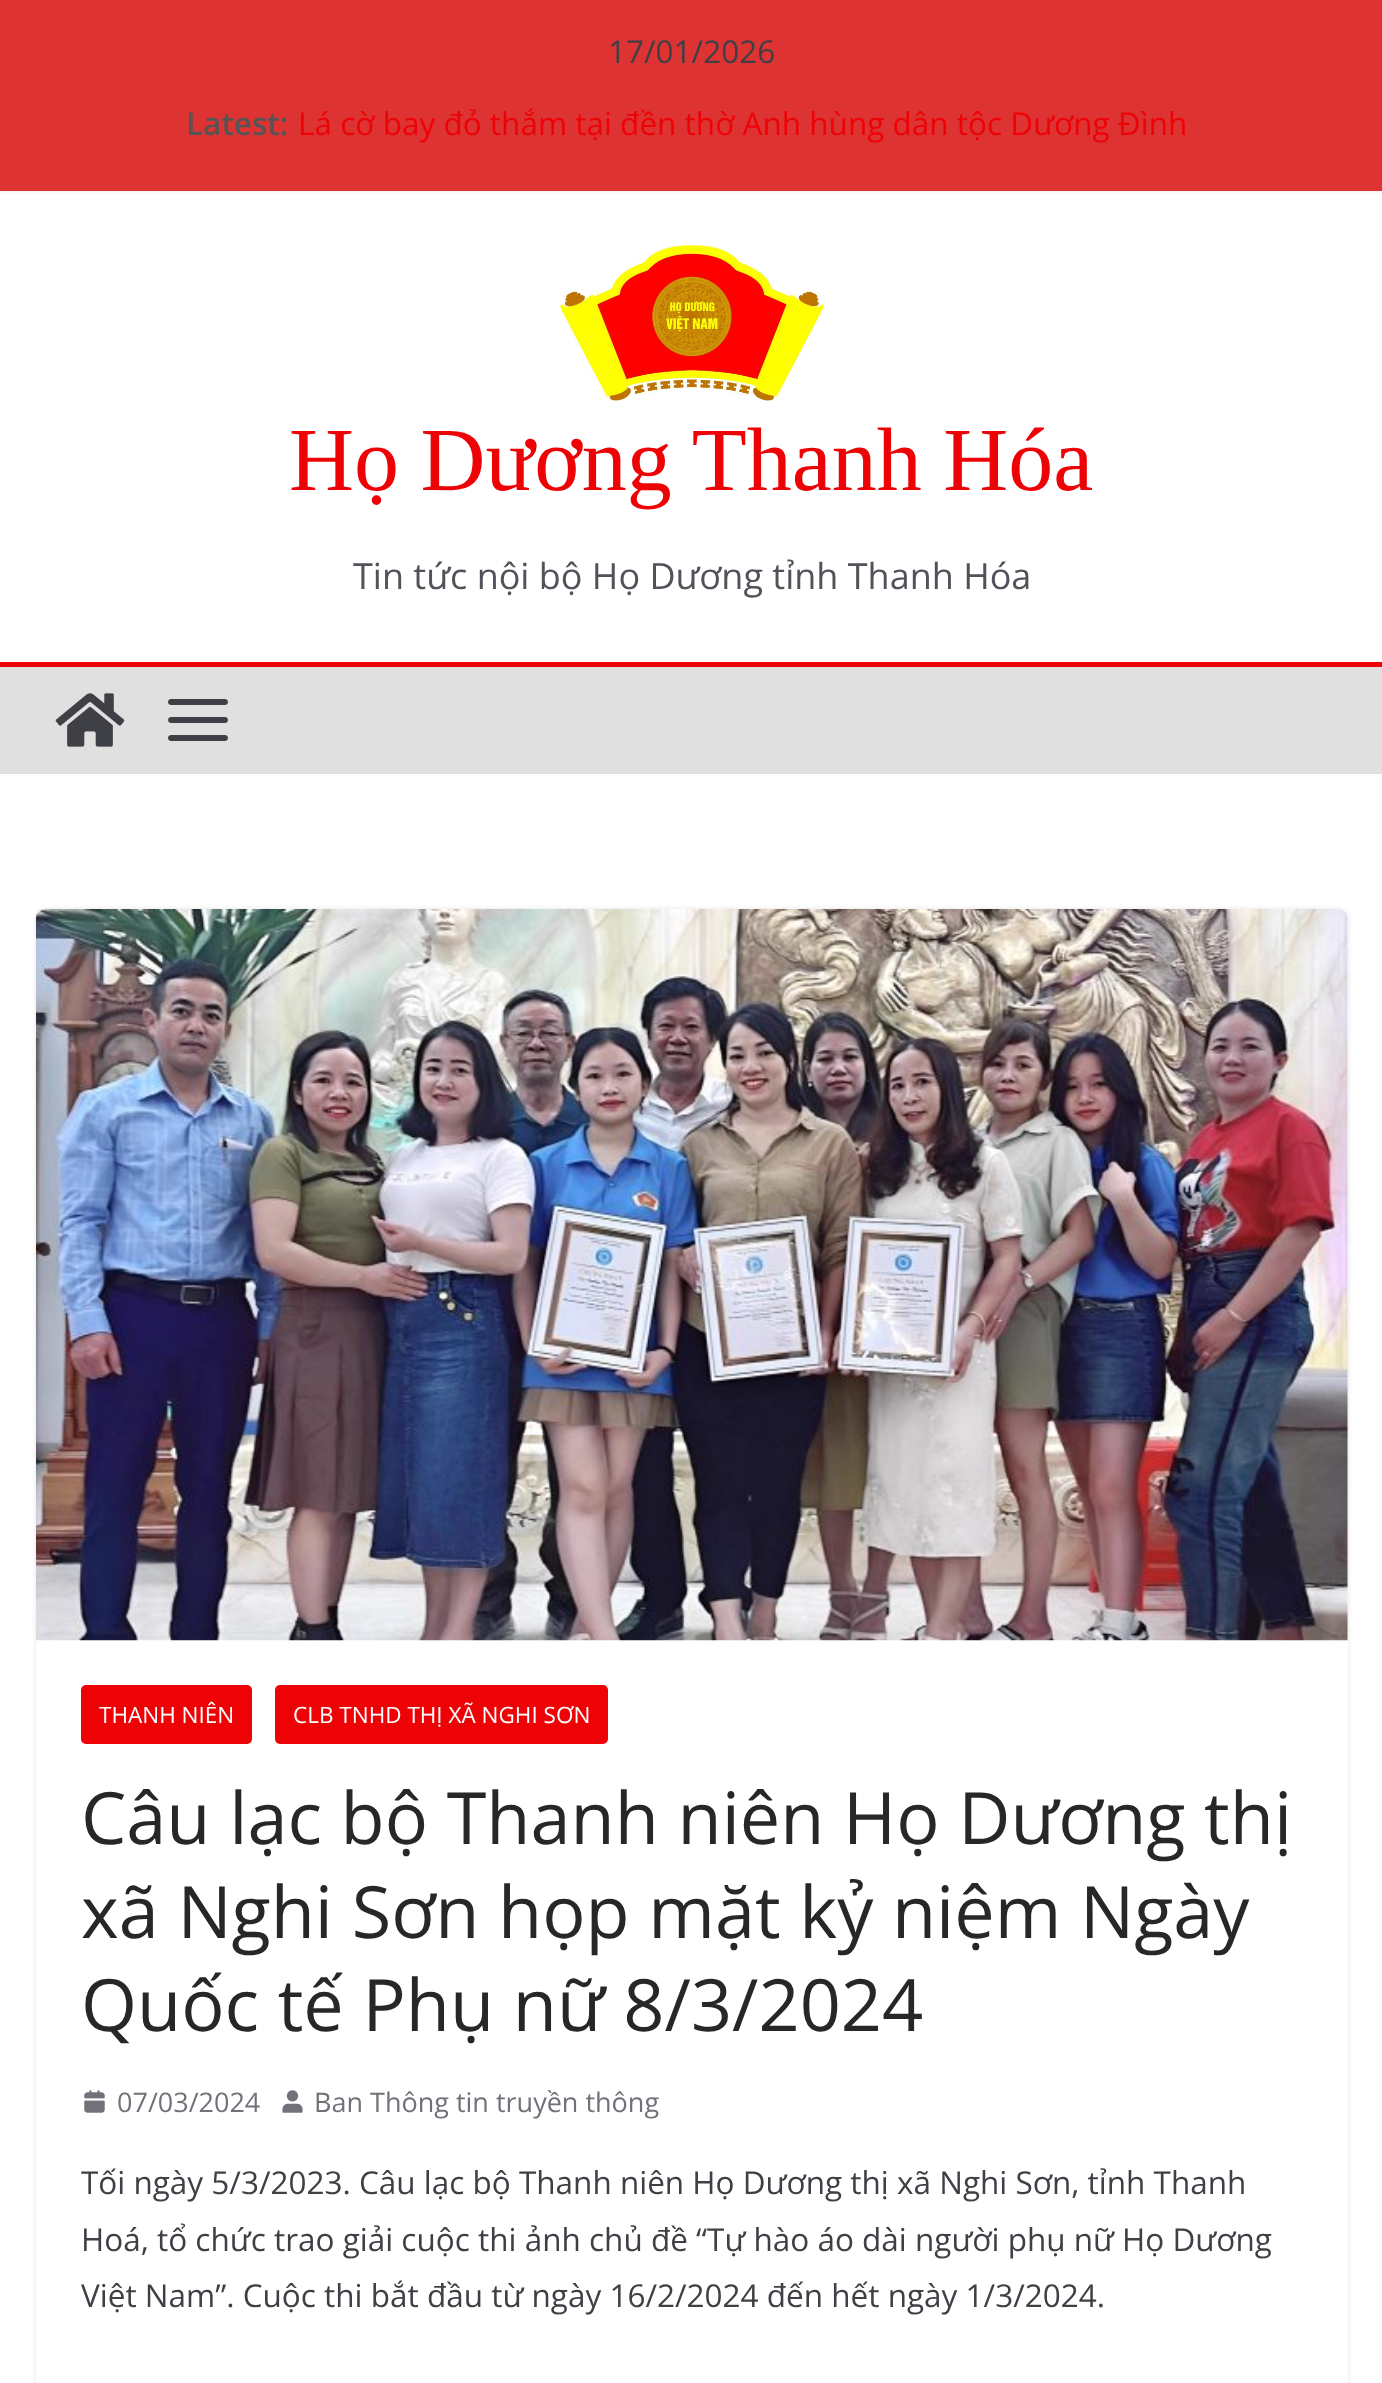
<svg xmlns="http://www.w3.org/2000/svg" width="1382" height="2383">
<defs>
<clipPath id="clip1"><path d="M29 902h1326v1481h-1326zm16 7h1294c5 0 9 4 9 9v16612c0 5-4 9-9 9h-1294c-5 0-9-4-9-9v-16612c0-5 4-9 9-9z" clip-rule="evenodd"/></clipPath>
</defs>
<rect width="100%" height="100%" fill="#fff"/>
<rect width="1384" height="191" fill="#0000001a" filter="blur(2px)"/>
<rect width="1382" height="191" fill="#d33"/>
<text x="608" y="63" style="font-family:Open Sans;font-size:31.5px;fill:#3f3f46">17/01/2026</text>
<text x="186" y="135" style="font-family:Open Sans;font-size:31.5px;font-weight:600;fill:#555">Latest:</text>
<text x="298" y="135" style="font-family:Open Sans;font-size:31.5px;fill:#ed0306">Lá cờ bay đỏ thắm tại đền thờ Anh hùng dân tộc Dương Đình</text>
<image x="560" y="245" width="264" height="156" href="media/1.png"/>
<text x="289" y="490" word-spacing="-1" style="font-family:Liberation Serif;font-size:90px;fill:#ed0306">Họ Dương Thanh Hóa</text>
<text x="353" y="589" style="font-family:Open Sans;font-size:36px;fill:#52525b">Tin tức nội bộ Họ Dương tỉnh Thanh Hóa</text>
<rect y="667" width="1382" height="107" fill="#e0e0e0"/>
<rect y="662" width="1382" height="5" fill="#ed0306"/>
<image x="55" y="693" width="70" height="54" href="media/2.png"/>
<image x="168" y="699" width="60" height="42" href="media/3.png"/>
<g clip-path="url(#clip1)">
<rect x="36" y="909" width="1312" height="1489" rx="9" fill="#e4e4e7" filter="blur(2px)"/>
</g>
<image x="36" y="909" width="1312" height="732" href="media/4.png"/>
<rect x="81" y="1685" width="171" height="59" rx="5" fill="#ed0306"/>
<text x="99" y="1723" style="font-family:Open Sans;font-size:22.5px;fill:#fff">THANH NIÊN</text>
<rect x="275" y="1685" width="333" height="59" rx="5" fill="#ed0306"/>
<text x="293" y="1723" style="font-family:Open Sans;font-size:22.5px;fill:#fff">CLB TNHD THỊ XÃ NGHI SƠN</text>
<text x="81" y="1844" style="font-family:Open Sans;font-size:72px;fill:#27272a">Câu lạc bộ Thanh niên Họ Dương thị</text>
<text x="81" y="1938" style="font-family:Open Sans;font-size:72px;fill:#27272a">xã Nghi Sơn họp mặt kỷ niệm Ngày</text>
<text x="81" y="2031" style="font-family:Open Sans;font-size:72px;fill:#27272a">Quốc tế Phụ nữ 8/3/2024</text>
<image x="84" y="2090" width="21" height="23" href="media/5.png"/>
<text x="117" y="2112" style="font-family:Open Sans;font-size:27px;fill:#71717a">07/03/2024</text>
<image x="282" y="2090" width="21" height="23" href="media/6.png"/>
<text x="314" y="2112" style="font-family:Open Sans;font-size:27px;fill:#71717a">Ban Thông tin truyền thông</text>
<text x="81" y="2194" style="font-family:Open Sans;font-size:31.5px;fill:#3f3f46">Tối ngày 5/3/2023. Câu lạc bộ Thanh niên Họ Dương thị xã Nghi Sơn, tỉnh Thanh</text>
<text x="81" y="2251" style="font-family:Open Sans;font-size:31.5px;fill:#3f3f46">Hoá, tổ chức trao giải cuộc thi ảnh chủ đề “Tự hào áo dài người phụ nữ Họ Dương</text>
<text x="81" y="2307" style="font-family:Open Sans;font-size:31.5px;fill:#3f3f46">Việt Nam”. Cuộc thi bắt đầu từ ngày 16/2/2024 đến hết ngày 1/3/2024.</text>
</svg>
